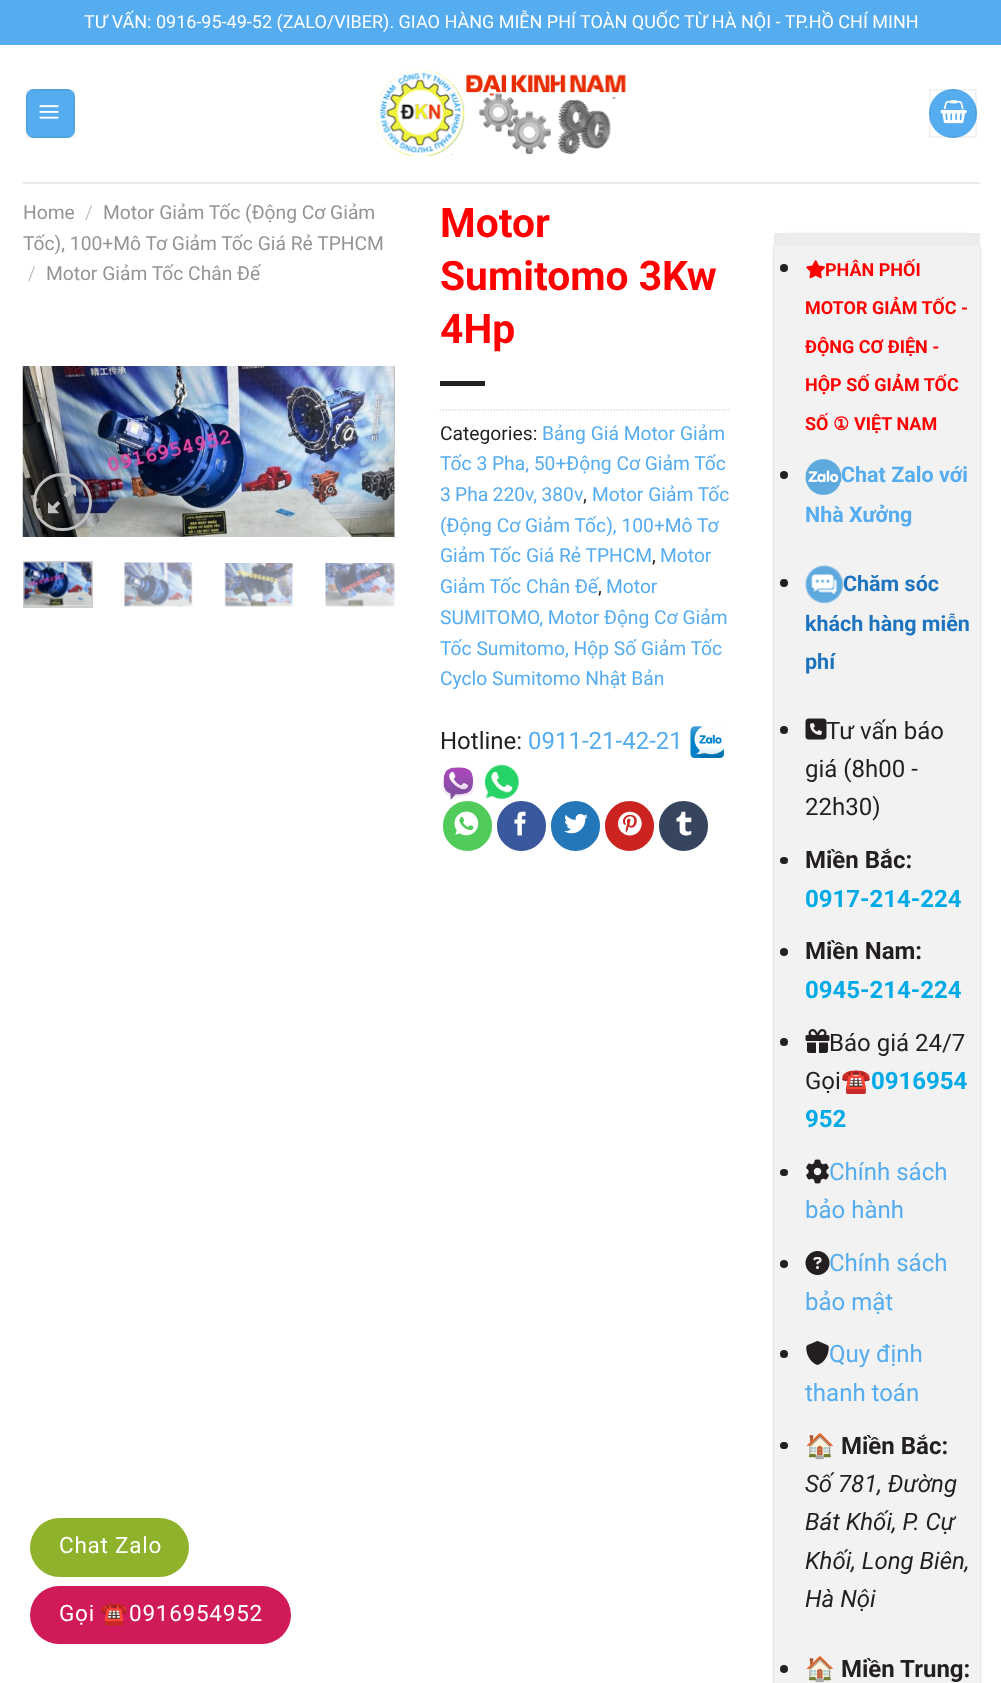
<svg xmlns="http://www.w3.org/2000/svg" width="1001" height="1683">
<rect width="100%" height="100%" fill="#fff"/>
<rect width="1001" height="45" fill="#55acee"/>
<text x="84" y="28" style="font-family:Roboto;font-size:18px;fill:#fff">TƯ VẤN: 0916-95-49-52 (ZALO/VIBER). GIAO HÀNG MIỄN PHÍ TOÀN QUỐC TỪ HÀ NỘI - TP.HỒ CHÍ MINH</text>
<rect x="26" y="89" width="49" height="49" rx="8" fill="#55acee"/>
<rect x="27" y="90" width="47" height="47" fill="none" stroke="#0000000d" stroke-width="2"/>
<image x="39" y="105" width="20" height="14" href="media/1.png"/>
<image x="376" y="70" width="250" height="86" href="media/2.png"/>
<rect x="929" y="89" width="48" height="49" rx="24" fill="#55acee"/>
<rect x="930" y="90" width="46" height="47" fill="none" stroke="#0000000d" stroke-width="2"/>
<image x="940" y="100" width="27" height="24" href="media/3.png"/>
<rect x="23" y="182" width="957" height="2" fill="#e9e9e9"/>
<text x="23" y="219" style="font-family:Roboto;font-size:19.25px;fill:#949494">Home</text>
<text x="85" y="219" style="font-family:Roboto;font-size:19.25px;font-weight:300;fill:#b2b2b2">/</text>
<text x="103" y="219" style="font-family:Roboto;font-size:19.25px;fill:#949494">Motor Giảm Tốc (Động Cơ Giảm</text>
<text x="23" y="250" style="font-family:Roboto;font-size:19.25px;fill:#949494">Tốc), 100+Mô Tơ Giảm Tốc Giá Rẻ TPHCM</text>
<text x="28" y="280" style="font-family:Roboto;font-size:19.25px;font-weight:300;fill:#b2b2b2">/</text>
<text x="46" y="280" style="font-family:Roboto;font-size:19.25px;fill:#949494">Motor Giảm Tốc Chân Đế</text>
<image x="22" y="366" width="373" height="171" href="media/4.png"/>
<image x="394" y="366" width="1" height="173" href="media/5.png"/>
<rect x="34.5" y="474.5" width="56" height="55" rx="27.5" fill="none" stroke="#c0c0c0" stroke-width="3"/>
<image x="48" y="485" width="28" height="29" href="media/6.png"/>
<rect x="24" y="562" width="68" height="45" fill="none" stroke="#ccc" stroke-width="2"/>
<image x="23" y="562" width="69" height="45" href="media/7.png"/>
<image x="124" y="562" width="69" height="45" href="media/8.png"/>
<image x="224" y="563" width="69" height="44" href="media/9.png"/>
<image x="325" y="563" width="70" height="44" href="media/10.png"/>
<text x="440" y="237" style="font-family:Roboto;font-size:40.75px;font-weight:bold;fill:#f00">Motor</text>
<text x="440" y="290" style="font-family:Roboto;font-size:40.75px;font-weight:bold;fill:#f00">Sumitomo 3Kw</text>
<text x="440" y="343" style="font-family:Roboto;font-size:40.75px;font-weight:bold;fill:#f00">4Hp</text>
<rect x="440" y="381" width="45" height="5" fill="#231f20"/>
<path d="M439.5 410h289.5" fill="none" stroke="#ddd" stroke-width="1.5" stroke-dasharray="1.5 1.5"/>
<text x="440" y="440" style="font-family:Roboto;font-size:19.25px;fill:#231f20">Categories:</text>
<text x="542" y="440" style="font-family:Roboto;font-size:19.25px;fill:#55acee">Bảng Giá Motor Giảm</text>
<text x="440" y="470" style="font-family:Roboto;font-size:19.25px;fill:#55acee">Tốc 3 Pha, 50+Động Cơ Giảm Tốc</text>
<text x="440" y="501" word-spacing="-0.5" style="font-family:Roboto;font-size:19.25px;fill:#55acee">3 Pha 220v, 380v</text>
<text x="583" y="501" style="font-family:Roboto;font-size:19.25px;fill:#231f20">,</text>
<text x="592" y="501" style="font-family:Roboto;font-size:19.25px;fill:#55acee">Motor Giảm Tốc</text>
<text x="440" y="532" style="font-family:Roboto;font-size:19.25px;fill:#55acee">(Động Cơ Giảm Tốc), 100+Mô Tơ</text>
<text x="440" y="562" style="font-family:Roboto;font-size:19.25px;fill:#55acee">Giảm Tốc Giá Rẻ TPHCM</text>
<text x="652" y="562" style="font-family:Roboto;font-size:19.25px;fill:#231f20">,</text>
<text x="660" y="562" style="font-family:Roboto;font-size:19.25px;fill:#55acee">Motor</text>
<text x="440" y="593" style="font-family:Roboto;font-size:19.25px;fill:#55acee">Giảm Tốc Chân Đế</text>
<text x="606" y="593" style="font-family:Roboto;font-size:19.25px;fill:#55acee">Motor</text>
<text x="598" y="593" style="font-family:Roboto;font-size:19.25px;fill:#231f20">,</text>
<text x="440" y="624" style="font-family:Roboto;font-size:19.25px;fill:#55acee">SUMITOMO, Motor Động Cơ Giảm</text>
<text x="440" y="655" style="font-family:Roboto;font-size:19.25px;fill:#55acee">Tốc Sumitomo, Hộp Số Giảm Tốc</text>
<text x="440" y="685" style="font-family:Roboto;font-size:19.25px;fill:#55acee">Cyclo Sumitomo Nhật Bản</text>
<text x="440" y="749" style="font-family:Roboto;font-size:24px;fill:#231f20">Hotline:</text>
<text x="528" y="749" style="font-family:Roboto;font-size:24px;fill:#55acee">0911-21-42-21</text>
<image x="690" y="726" width="35" height="32" href="media/11.png"/>
<image x="441" y="767" width="35" height="33" href="media/12.png"/>
<image x="484" y="764" width="36" height="36" href="media/13.png"/>
<rect x="444" y="802" width="47" height="48" rx="23.5" fill="#51cb5a" stroke="#51cb5a" stroke-width="2"/>
<image x="454" y="811" width="25" height="25" href="media/14.png"/>
<rect x="498" y="802" width="47" height="48" rx="23.5" fill="#3a589d" stroke="#3a589d" stroke-width="2"/>
<image x="514" y="811" width="12" height="25" href="media/15.png"/>
<rect x="552" y="802" width="47" height="48" rx="23.5" fill="#2478ba" stroke="#2478ba" stroke-width="2"/>
<image x="564" y="814" width="24" height="20" href="media/16.png"/>
<rect x="606" y="802" width="47" height="48" rx="23.5" fill="#cb2320" stroke="#cb2320" stroke-width="2"/>
<image x="618" y="811" width="24" height="25" href="media/17.png"/>
<rect x="660" y="802" width="47" height="48" rx="23.5" fill="#36455d" stroke="#36455d" stroke-width="2"/>
<image x="676" y="811" width="16" height="25" href="media/18.png"/>
<rect x="774" y="234" width="206" height="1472" rx="18" fill="#0000003d" filter="blur(1.5px)"/>
<rect x="774" y="233" width="206" height="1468" rx="18" fill="#f2f2f2"/>
<rect x="774" y="233" width="206" height="13" fill="#ececec"/>
<circle cx="784" cy="268" r="4" fill="#231f20"/>
<image x="806" y="260" width="19" height="19" href="media/19.png"/>
<text x="825" y="276" style="font-family:Roboto;font-size:18px;font-weight:bold;fill:#f00">PHÂN PHỐI</text>
<text x="805" y="314" style="font-family:Roboto;font-size:18px;font-weight:bold;fill:#f00">MOTOR GIẢM TỐC -</text>
<text x="805" y="353" style="font-family:Roboto;font-size:18px;font-weight:bold;fill:#f00">ĐỘNG CƠ ĐIỆN -</text>
<text x="805" y="391" style="font-family:Roboto;font-size:18px;font-weight:bold;fill:#f00">HỘP SỐ GIẢM TỐC</text>
<text x="805" y="430" style="font-family:Roboto;font-size:18px;font-weight:bold;fill:#f00">SỐ</text>
<text x="833" y="430" style="font-family:DejaVu Sans;font-size:18px;font-weight:bold;fill:#f00">①</text>
<text x="854" y="430" style="font-family:Roboto;font-size:18px;font-weight:bold;fill:#f00">VIỆT NAM</text>
<circle cx="784" cy="475" r="4" fill="#231f20"/>
<image x="805" y="459" width="37" height="36" href="media/20.png"/>
<text x="841" y="482" style="font-family:Roboto;font-size:21.5px;font-weight:bold;fill:#55acee">Chat Zalo với</text>
<text x="805" y="522" style="font-family:Roboto;font-size:21.5px;font-weight:bold;fill:#55acee">Nhà Xưởng</text>
<circle cx="784" cy="583" r="4" fill="#231f20"/>
<image x="805" y="565" width="39" height="39" href="media/21.png"/>
<text x="843" y="591" style="font-family:Roboto;font-size:21.5px;font-weight:bold;fill:#1e73be">Chăm sóc</text>
<text x="805" y="631" style="font-family:Roboto;font-size:21.5px;font-weight:bold;fill:#1e73be">khách hàng miễn</text>
<text x="805" y="669" style="font-family:Roboto;font-size:21.5px;font-weight:bold;fill:#1e73be">phí</text>
<circle cx="784" cy="730" r="4" fill="#231f20"/>
<image x="805" y="718" width="22" height="22" href="media/22.png"/>
<text x="826" y="739" style="font-family:Roboto;font-size:24px;fill:#231f20">Tư vấn báo</text>
<text x="805" y="777" style="font-family:Roboto;font-size:24px;fill:#231f20">giá (8h00 -</text>
<text x="805" y="815" style="font-family:Roboto;font-size:24px;fill:#231f20">22h30)</text>
<rect x="780" y="857" width="8" height="7" rx="3.5" fill="#231f20"/>
<text x="805" y="868" style="font-family:Roboto;font-size:24px;font-weight:bold;fill:#231f20">Miền Bắc:</text>
<text x="805" y="907" style="font-family:Roboto;font-size:24px;font-weight:bold;fill:#00aae7">0917-214-224</text>
<circle cx="784" cy="952" r="4" fill="#231f20"/>
<text x="805" y="959" style="font-family:Roboto;font-size:24px;font-weight:bold;fill:#231f20">Miền Nam:</text>
<text x="805" y="998" style="font-family:Roboto;font-size:24px;font-weight:bold;fill:#00aae7">0945-214-224</text>
<circle cx="784" cy="1042" r="4" fill="#231f20"/>
<image x="805" y="1029" width="25" height="24" href="media/23.png"/>
<text x="829" y="1051" style="font-family:Roboto;font-size:24px;fill:#231f20">Báo giá 24/7</text>
<text x="805" y="1089" style="font-family:Roboto;font-size:24px;fill:#231f20">Gọi</text>
<text x="841" y="1089" style="font-family:Noto Color Emoji;font-size:24px;fill:#231f20">☎️</text>
<text x="871" y="1089" style="font-family:Roboto;font-size:24px;font-weight:bold;fill:#00aae7">0916954</text>
<text x="805" y="1127" style="font-family:Roboto;font-size:24px;font-weight:bold;fill:#00aae7">952</text>
<rect x="780" y="1169" width="8" height="7" rx="3.5" fill="#231f20"/>
<image x="806" y="1159" width="23" height="25" href="media/24.png"/>
<text x="829" y="1180" style="font-family:Roboto;font-size:24px;fill:#55acee">Chính sách</text>
<text x="805" y="1218" style="font-family:Roboto;font-size:24px;fill:#55acee">bảo hành</text>
<circle cx="784" cy="1264" r="4" fill="#231f20"/>
<image x="805" y="1251" width="25" height="24" href="media/25.png"/>
<text x="829" y="1271" style="font-family:Roboto;font-size:24px;fill:#55acee">Chính sách</text>
<text x="805" y="1310" style="font-family:Roboto;font-size:24px;fill:#55acee">bảo mật</text>
<circle cx="784" cy="1354" r="4" fill="#231f20"/>
<image x="806" y="1341" width="23" height="24" href="media/26.png"/>
<text x="829" y="1362" style="font-family:Roboto;font-size:24px;fill:#55acee">Quy định</text>
<text x="805" y="1401" style="font-family:Roboto;font-size:24px;fill:#55acee">thanh toán</text>
<rect x="780" y="1442" width="8" height="7" rx="3.5" fill="#231f20"/>
<text x="805" y="1454" style="font-family:Noto Color Emoji;font-size:24px;fill:#231f20">🏠</text>
<text x="841" y="1454" style="font-family:Roboto;font-size:24px;font-weight:bold;fill:#231f20">Miền Bắc:</text>
<text x="805" y="1492" style="font-family:Roboto;font-size:24px;font-style:italic;fill:#231f20">Số 781, Đường</text>
<text x="805" y="1530" style="font-family:Roboto;font-size:24px;font-style:italic;fill:#231f20">Bát Khối, P. Cự</text>
<text x="805" y="1569" style="font-family:Roboto;font-size:24px;font-style:italic;fill:#231f20">Khối, Long Biên,</text>
<text x="805" y="1607" style="font-family:Roboto;font-size:24px;font-style:italic;fill:#231f20">Hà Nội</text>
<circle cx="784" cy="1669" r="4" fill="#231f20"/>
<text x="805" y="1677" style="font-family:Noto Color Emoji;font-size:24px;fill:#231f20">🏠</text>
<text x="841" y="1677" style="font-family:Roboto;font-size:24px;font-weight:bold;fill:#231f20">Miền Trung:</text>
<rect x="30" y="1518" width="159" height="59" rx="29.5" fill="#8eb22b"/>
<text x="59" y="1553" style="font-family:Roboto;font-size:22.5px;letter-spacing:0.75px;fill:#fff">Chat Zalo</text>
<rect x="30" y="1586" width="261" height="58" rx="29" fill="#d11a59"/>
<text x="59" y="1621" style="font-family:Roboto;font-size:22.5px;letter-spacing:0.75px;fill:#fff">Gọi</text>
<text x="100" y="1621" style="font-family:Noto Color Emoji;font-size:22.5px;letter-spacing:0.75px;fill:#fff">☎️</text>
<text x="129" y="1621" style="font-family:Roboto;font-size:22.5px;letter-spacing:0.75px;fill:#fff">0916954952</text>
</svg>
